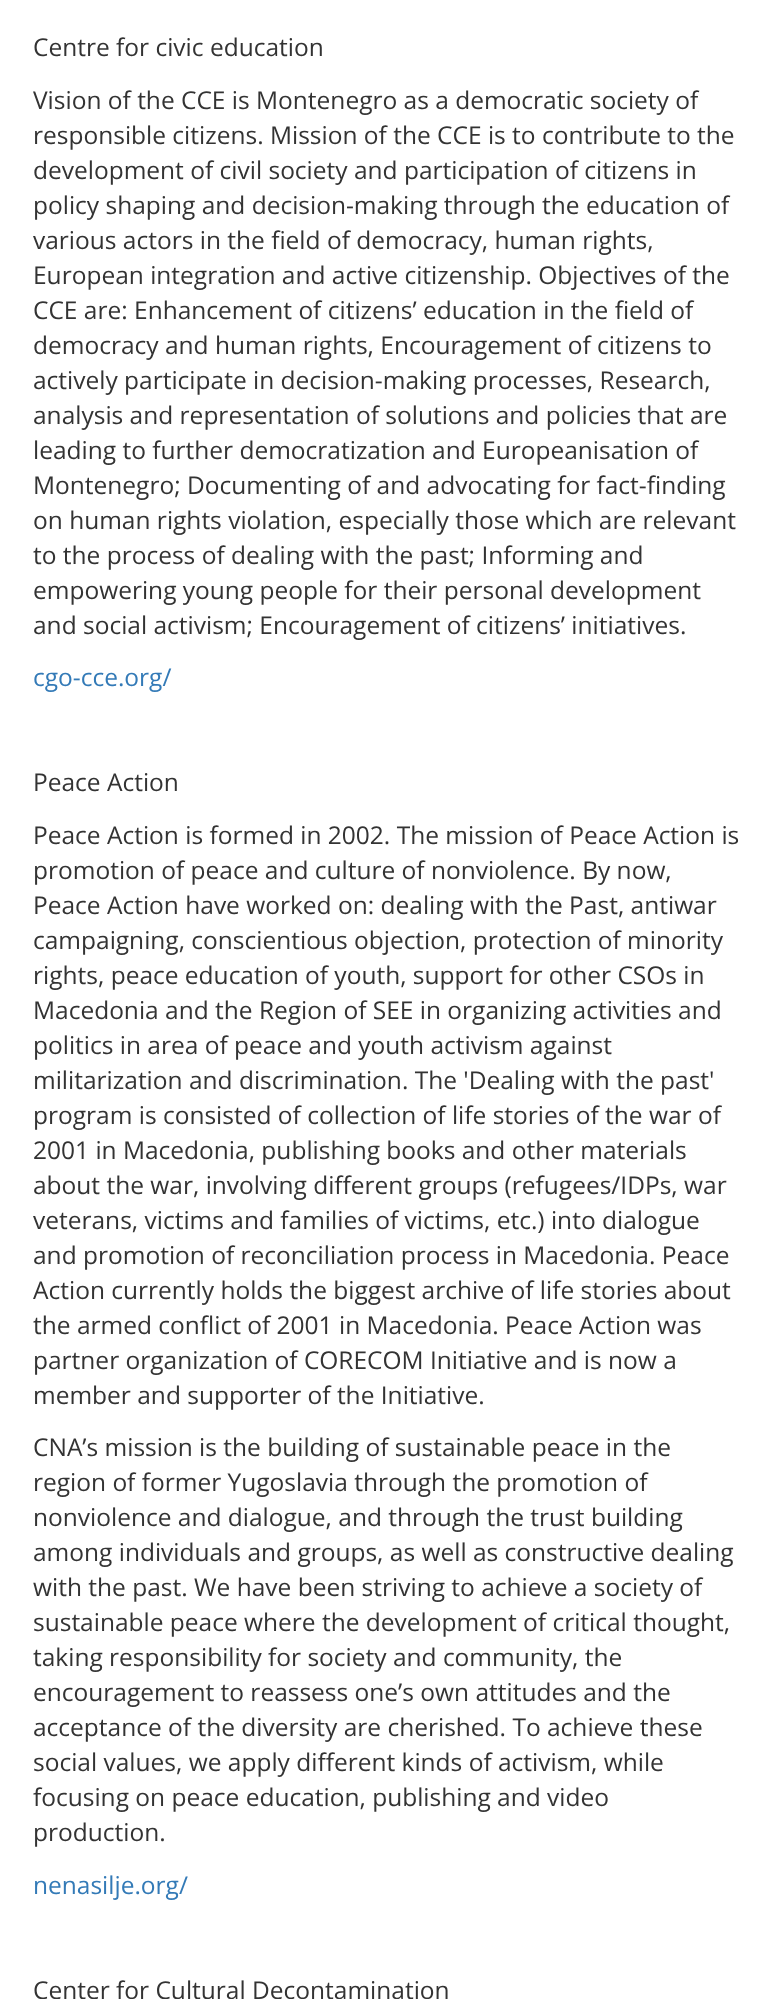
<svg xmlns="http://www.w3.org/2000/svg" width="775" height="1999">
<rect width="100%" height="100%" fill="#fff"/>
<text x="33" y="56" style="font-family:Open Sans;font-size:24.5px;fill:#333">Centre for civic education</text>
<text x="33" y="109" style="font-family:Open Sans;font-size:24.5px;fill:#333">Vision of the CCE is Montenegro as a democratic society of</text>
<text x="33" y="144" style="font-family:Open Sans;font-size:24.5px;fill:#333">responsible citizens. Mission of the CCE is to contribute to the</text>
<text x="33" y="179" style="font-family:Open Sans;font-size:24.5px;fill:#333">development of civil society and participation of citizens in</text>
<text x="33" y="214" style="font-family:Open Sans;font-size:24.5px;fill:#333">policy shaping and decision-making through the education of</text>
<text x="33" y="249" style="font-family:Open Sans;font-size:24.5px;fill:#333">various actors in the field of democracy, human rights,</text>
<text x="33" y="284" style="font-family:Open Sans;font-size:24.5px;fill:#333">European integration and active citizenship. Objectives of the</text>
<text x="33" y="319" style="font-family:Open Sans;font-size:24.5px;fill:#333">CCE are: Enhancement of citizens’ education in the field of</text>
<text x="33" y="354" style="font-family:Open Sans;font-size:24.5px;fill:#333">democracy and human rights, Encouragement of citizens to</text>
<text x="33" y="389" style="font-family:Open Sans;font-size:24.5px;fill:#333">actively participate in decision-making processes, Research,</text>
<text x="33" y="424" style="font-family:Open Sans;font-size:24.5px;fill:#333">analysis and representation of solutions and policies that are</text>
<text x="33" y="459" style="font-family:Open Sans;font-size:24.5px;fill:#333">leading to further democratization and Europeanisation of</text>
<text x="33" y="494" style="font-family:Open Sans;font-size:24.5px;fill:#333">Montenegro; Documenting of and advocating for fact-finding</text>
<text x="33" y="529" style="font-family:Open Sans;font-size:24.5px;fill:#333">on human rights violation, especially those which are relevant</text>
<text x="33" y="564" style="font-family:Open Sans;font-size:24.5px;fill:#333">to the process of dealing with the past; Informing and</text>
<text x="33" y="599" style="font-family:Open Sans;font-size:24.5px;fill:#333">empowering young people for their personal development</text>
<text x="33" y="634" style="font-family:Open Sans;font-size:24.5px;fill:#333">and social activism; Encouragement of citizens’ initiatives.</text>
<text x="33" y="686" style="font-family:Open Sans;font-size:24.5px;fill:#337ab7">cgo-cce.org/</text>
<text x="33" y="791" style="font-family:Open Sans;font-size:24.5px;fill:#333">Peace Action</text>
<text x="33" y="844" style="font-family:Open Sans;font-size:24.5px;fill:#333">Peace Action is formed in 2002. The mission of Peace Action is</text>
<text x="33" y="879" style="font-family:Open Sans;font-size:24.5px;fill:#333">promotion of peace and culture of nonviolence. By now,</text>
<text x="33" y="914" style="font-family:Open Sans;font-size:24.5px;fill:#333">Peace Action have worked on: dealing with the Past, antiwar</text>
<text x="33" y="949" style="font-family:Open Sans;font-size:24.5px;fill:#333">campaigning, conscientious objection, protection of minority</text>
<text x="33" y="984" style="font-family:Open Sans;font-size:24.5px;fill:#333">rights, peace education of youth, support for other CSOs in</text>
<text x="33" y="1019" style="font-family:Open Sans;font-size:24.5px;fill:#333">Macedonia and the Region of SEE in organizing activities and</text>
<text x="33" y="1054" style="font-family:Open Sans;font-size:24.5px;fill:#333">politics in area of peace and youth activism against</text>
<text x="33" y="1089" style="font-family:Open Sans;font-size:24.5px;fill:#333">militarization and discrimination. The 'Dealing with the past'</text>
<text x="33" y="1124" style="font-family:Open Sans;font-size:24.5px;fill:#333">program is consisted of collection of life stories of the war of</text>
<text x="33" y="1159" style="font-family:Open Sans;font-size:24.5px;fill:#333">2001 in Macedonia, publishing books and other materials</text>
<text x="33" y="1194" style="font-family:Open Sans;font-size:24.5px;fill:#333">about the war, involving different groups (refugees/IDPs, war</text>
<text x="33" y="1229" style="font-family:Open Sans;font-size:24.5px;fill:#333">veterans, victims and families of victims, etc.) into dialogue</text>
<text x="33" y="1264" style="font-family:Open Sans;font-size:24.5px;fill:#333">and promotion of reconciliation process in Macedonia. Peace</text>
<text x="33" y="1299" style="font-family:Open Sans;font-size:24.5px;fill:#333">Action currently holds the biggest archive of life stories about</text>
<text x="33" y="1334" style="font-family:Open Sans;font-size:24.5px;fill:#333">the armed conflict of 2001 in Macedonia. Peace Action was</text>
<text x="33" y="1369" style="font-family:Open Sans;font-size:24.5px;fill:#333">partner organization of CORECOM Initiative and is now a</text>
<text x="33" y="1404" style="font-family:Open Sans;font-size:24.5px;fill:#333">member and supporter of the Initiative.</text>
<text x="33" y="1456" style="font-family:Open Sans;font-size:24.5px;fill:#333">CNA’s mission is the building of sustainable peace in the</text>
<text x="33" y="1491" style="font-family:Open Sans;font-size:24.5px;fill:#333">region of former Yugoslavia through the promotion of</text>
<text x="33" y="1526" style="font-family:Open Sans;font-size:24.5px;fill:#333">nonviolence and dialogue, and through the trust building</text>
<text x="33" y="1561" style="font-family:Open Sans;font-size:24.5px;fill:#333">among individuals and groups, as well as constructive dealing</text>
<text x="33" y="1596" style="font-family:Open Sans;font-size:24.5px;fill:#333">with the past. We have been striving to achieve a society of</text>
<text x="33" y="1631" style="font-family:Open Sans;font-size:24.5px;fill:#333">sustainable peace where the development of critical thought,</text>
<text x="33" y="1666" style="font-family:Open Sans;font-size:24.5px;fill:#333">taking responsibility for society and community, the</text>
<text x="33" y="1701" style="font-family:Open Sans;font-size:24.5px;fill:#333">encouragement to reassess one’s own attitudes and the</text>
<text x="33" y="1736" style="font-family:Open Sans;font-size:24.5px;fill:#333">acceptance of the diversity are cherished. To achieve these</text>
<text x="33" y="1771" style="font-family:Open Sans;font-size:24.5px;fill:#333">social values, we apply different kinds of activism, while</text>
<text x="33" y="1806" style="font-family:Open Sans;font-size:24.5px;fill:#333">focusing on peace education, publishing and video</text>
<text x="33" y="1841" style="font-family:Open Sans;font-size:24.5px;fill:#333">production.</text>
<text x="33" y="1894" style="font-family:Open Sans;font-size:24.5px;fill:#337ab7">nenasilje.org/</text>
<text x="33" y="1999" style="font-family:Open Sans;font-size:24.5px;fill:#333">Center for Cultural Decontamination</text>
</svg>
